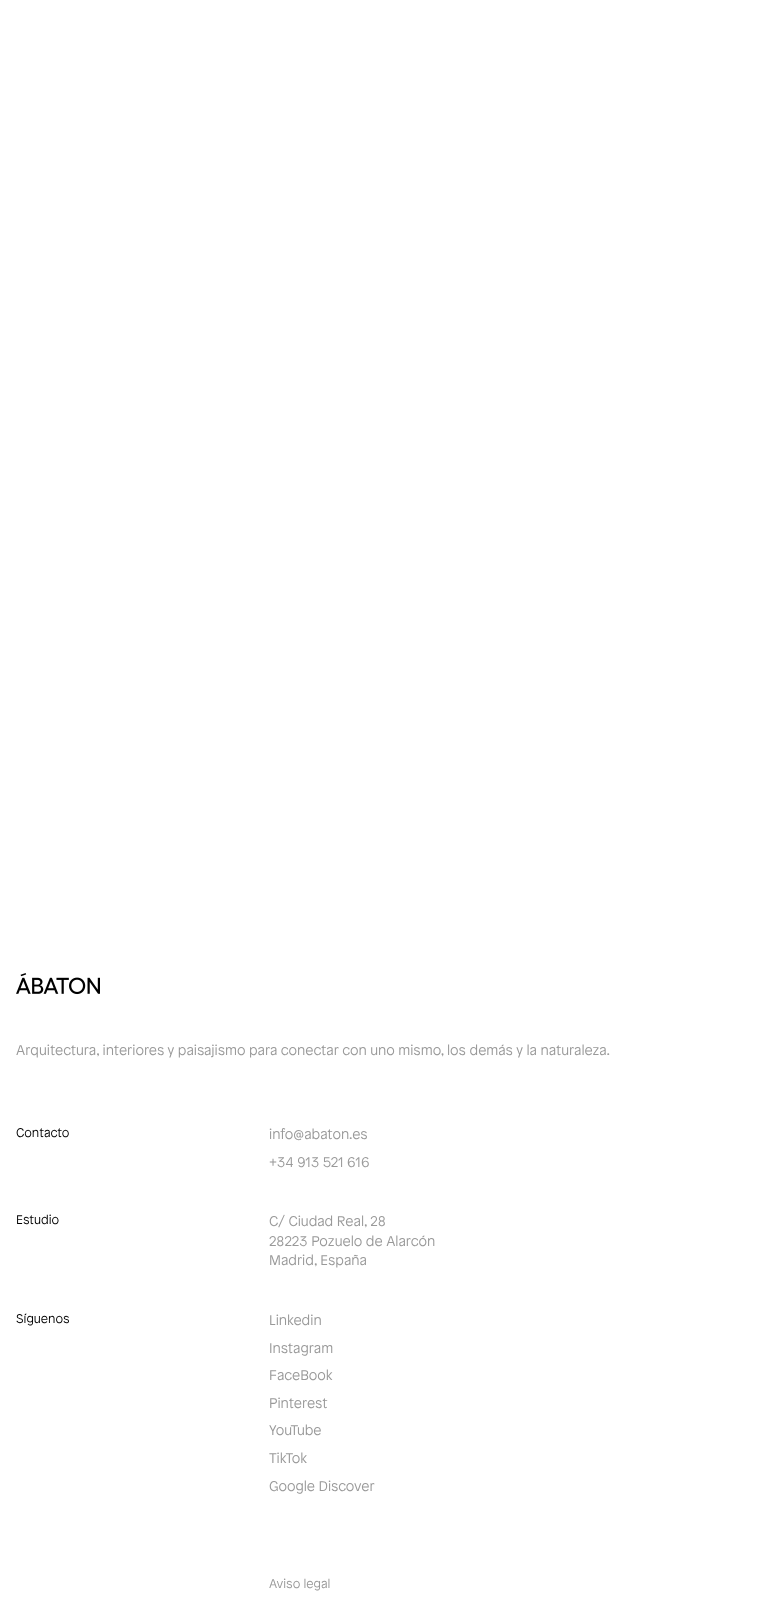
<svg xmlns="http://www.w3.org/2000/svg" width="778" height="1601">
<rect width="100%" height="100%" fill="#fff"/>
<image x="16" y="973" width="84" height="22" href="media/1.png"/>
<text x="16" y="1055" style="font-family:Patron;font-size:14px;font-weight:300;fill:#999">Arquitectura, interiores y paisajismo para conectar con uno mismo, los demás y la naturaleza.</text>
<text x="16" y="1137" style="font-family:Patron;font-size:12.5px;font-weight:300;fill:#000">Contacto</text>
<text x="269" y="1139" style="font-family:Patron;font-size:14px;font-weight:300;fill:#999">info@abaton.es</text>
<text x="269" y="1167" style="font-family:Patron;font-size:14px;font-weight:300;fill:#999">+34 913 521 616</text>
<text x="16" y="1224" style="font-family:Patron;font-size:12.5px;font-weight:300;fill:#000">Estudio</text>
<text x="269" y="1226" style="font-family:Patron;font-size:14px;font-weight:300;fill:#999">C/ Ciudad Real, 28</text>
<text x="269" y="1246" style="font-family:Patron;font-size:14px;font-weight:300;fill:#999">28223 Pozuelo de Alarcón</text>
<text x="269" y="1265" style="font-family:Patron;font-size:14px;font-weight:300;fill:#999">Madrid, España</text>
<text x="16" y="1323" style="font-family:Patron;font-size:12.5px;font-weight:300;fill:#000">Síguenos</text>
<text x="269" y="1325" style="font-family:Patron;font-size:14px;font-weight:300;fill:#999">Linkedin</text>
<text x="269" y="1353" style="font-family:Patron;font-size:14px;font-weight:300;fill:#999">Instagram</text>
<text x="269" y="1380" style="font-family:Patron;font-size:14px;font-weight:300;fill:#999">FaceBook</text>
<text x="269" y="1408" style="font-family:Patron;font-size:14px;font-weight:300;fill:#999">Pinterest</text>
<text x="269" y="1435" style="font-family:Patron;font-size:14px;font-weight:300;fill:#999">YouTube</text>
<text x="269" y="1463" style="font-family:Patron;font-size:14px;font-weight:300;fill:#999">TikTok</text>
<text x="269" y="1491" style="font-family:Patron;font-size:14px;font-weight:300;fill:#999">Google Discover</text>
<text x="269" y="1588" style="font-family:Patron;font-size:12.5px;font-weight:300;fill:#999">Aviso legal</text>
</svg>
